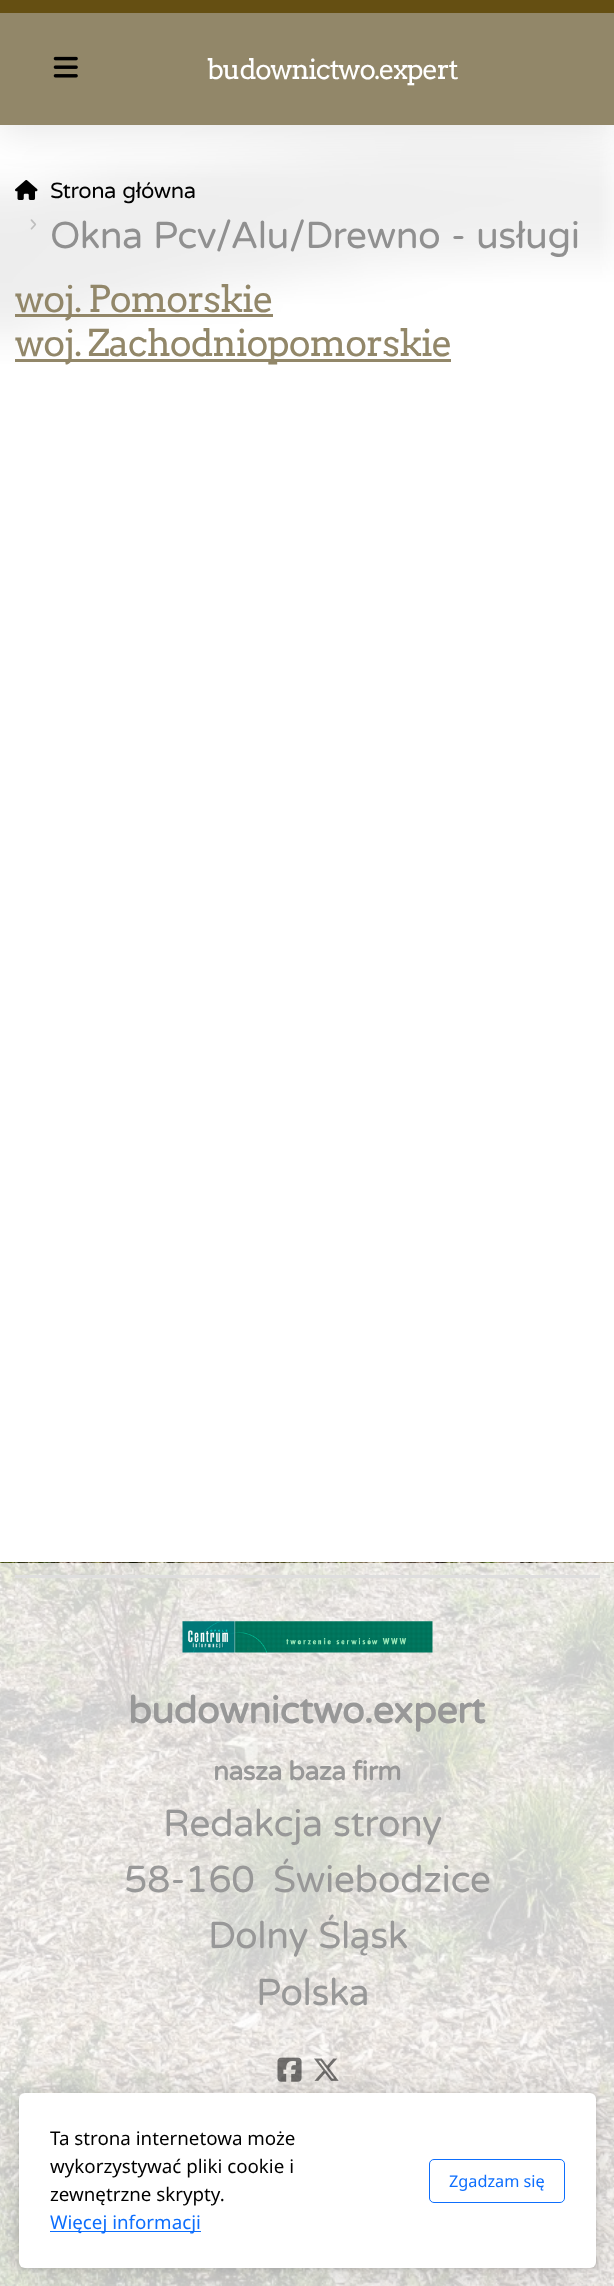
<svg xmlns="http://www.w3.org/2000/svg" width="614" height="2286">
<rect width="100%" height="100%" fill="#fff"/>
<image x="0" y="125" width="614" height="239" href="media/2.png"/>
<image x="15" y="180" width="23" height="20" href="media/3.png"/>
<rect y="9" width="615" height="125" fill="#00000017" filter="blur(18px)"/>
<rect y="13" width="614" height="112" fill="#928769"/>
<rect width="614" height="13" fill="#654f12"/>
<image x="53" y="56" width="25" height="22" href="media/1.png"/>
<text x="207" y="79" style="font-family:Arvo;font-size:27.5px;letter-spacing:-1.25px;fill:#fff">budownictwo.expert</text>
<text x="50" y="198" word-spacing="1" style="font-family:Varela Round;font-size:22px;letter-spacing:-0.45px;fill:#000">Strona główna</text>
<text x="29" y="230" style="font-family:Varela Round;font-size:22px;letter-spacing:-0.45px;fill:#bebebe">›</text>
<text x="50" y="248" word-spacing="1" style="font-family:Varela Round;font-size:37.5px;letter-spacing:-0.45px;fill:#909090">Okna Pcv/Alu/Drewno - usługi</text>
<rect x="15" y="314" width="258" height="3" fill="#928769"/>
<text x="15" y="312" style="font-family:Arvo;font-size:36.75px;letter-spacing:-1.1px;fill:#928769">woj. Pomorskie</text>
<rect x="15" y="359" width="436" height="3" fill="#928769"/>
<text x="15" y="356" style="font-family:Arvo;font-size:36.75px;letter-spacing:-1.1px;fill:#928769">woj. Zachodniopomorskie</text>
<image x="0" y="1562" width="614" height="724" href="media/4.png"/>
<rect x="15" y="1575" width="585" height="3" fill="#dedede"/>
<image x="182" y="1621" width="251" height="32" href="media/5.png"/>
<text x="128" y="1723" style="font-family:Varela Round;font-size:37.5px;font-weight:bold;letter-spacing:-0.45px;fill:#989898">budownictwo.expert</text>
<text x="213" y="1780" style="font-family:Varela Round;font-size:26.25px;font-weight:bold;letter-spacing:-0.45px;fill:#989898">nasza baza firm</text>
<text x="163" y="1836" word-spacing="1" style="font-family:Varela Round;font-size:37.5px;letter-spacing:-0.45px;fill:#989898">Redakcja strony</text>
<text x="124" y="1892" style="font-family:Varela Round;font-size:37.5px;letter-spacing:-0.45px;fill:#989898">58-160</text>
<text x="273" y="1892" style="font-family:Varela Round;font-size:37.5px;letter-spacing:-0.45px;fill:#989898">Świebodzice</text>
<text x="208" y="1948" word-spacing="1" style="font-family:Varela Round;font-size:37.5px;letter-spacing:-0.45px;fill:#989898">Dolny Śląsk</text>
<text x="256" y="2005" style="font-family:Varela Round;font-size:37.5px;letter-spacing:-0.45px;fill:#989898">Polska</text>
<image x="277" y="2057" width="25" height="25" href="media/6.png"/>
<image x="314" y="2058" width="25" height="23" href="media/7.png"/>
<rect x="19" y="2099" width="577" height="175" rx="6" fill="#00000029" filter="blur(19px)"/>
<rect x="19" y="2094" width="577" height="175" rx="6" fill="#0000001a" filter="blur(2px)"/>
<rect x="19" y="2093" width="577" height="175" rx="6" fill="#fff"/>
<text x="50" y="2145" style="font-family:Noto Sans;font-size:18.75px;fill:#000">Ta strona internetowa może</text>
<text x="50" y="2173" style="font-family:Noto Sans;font-size:18.75px;fill:#000">wykorzystywać pliki cookie i</text>
<text x="50" y="2201" style="font-family:Noto Sans;font-size:18.75px;fill:#000">zewnętrzne skrypty.</text>
<rect x="50" y="2231" width="151" height="1" fill="#0d6efd"/>
<text x="50" y="2229" style="font-family:Noto Sans;font-size:18.75px;fill:#0d6efd">Więcej informacji</text>
<rect x="429.5" y="2159.5" width="135" height="43" rx="4.5" fill="none" stroke="#0d6efd"/>
<text x="449" y="2187" style="font-family:Noto Sans;font-size:16.25px;fill:#0d6efd">Zgadzam się</text>
</svg>
